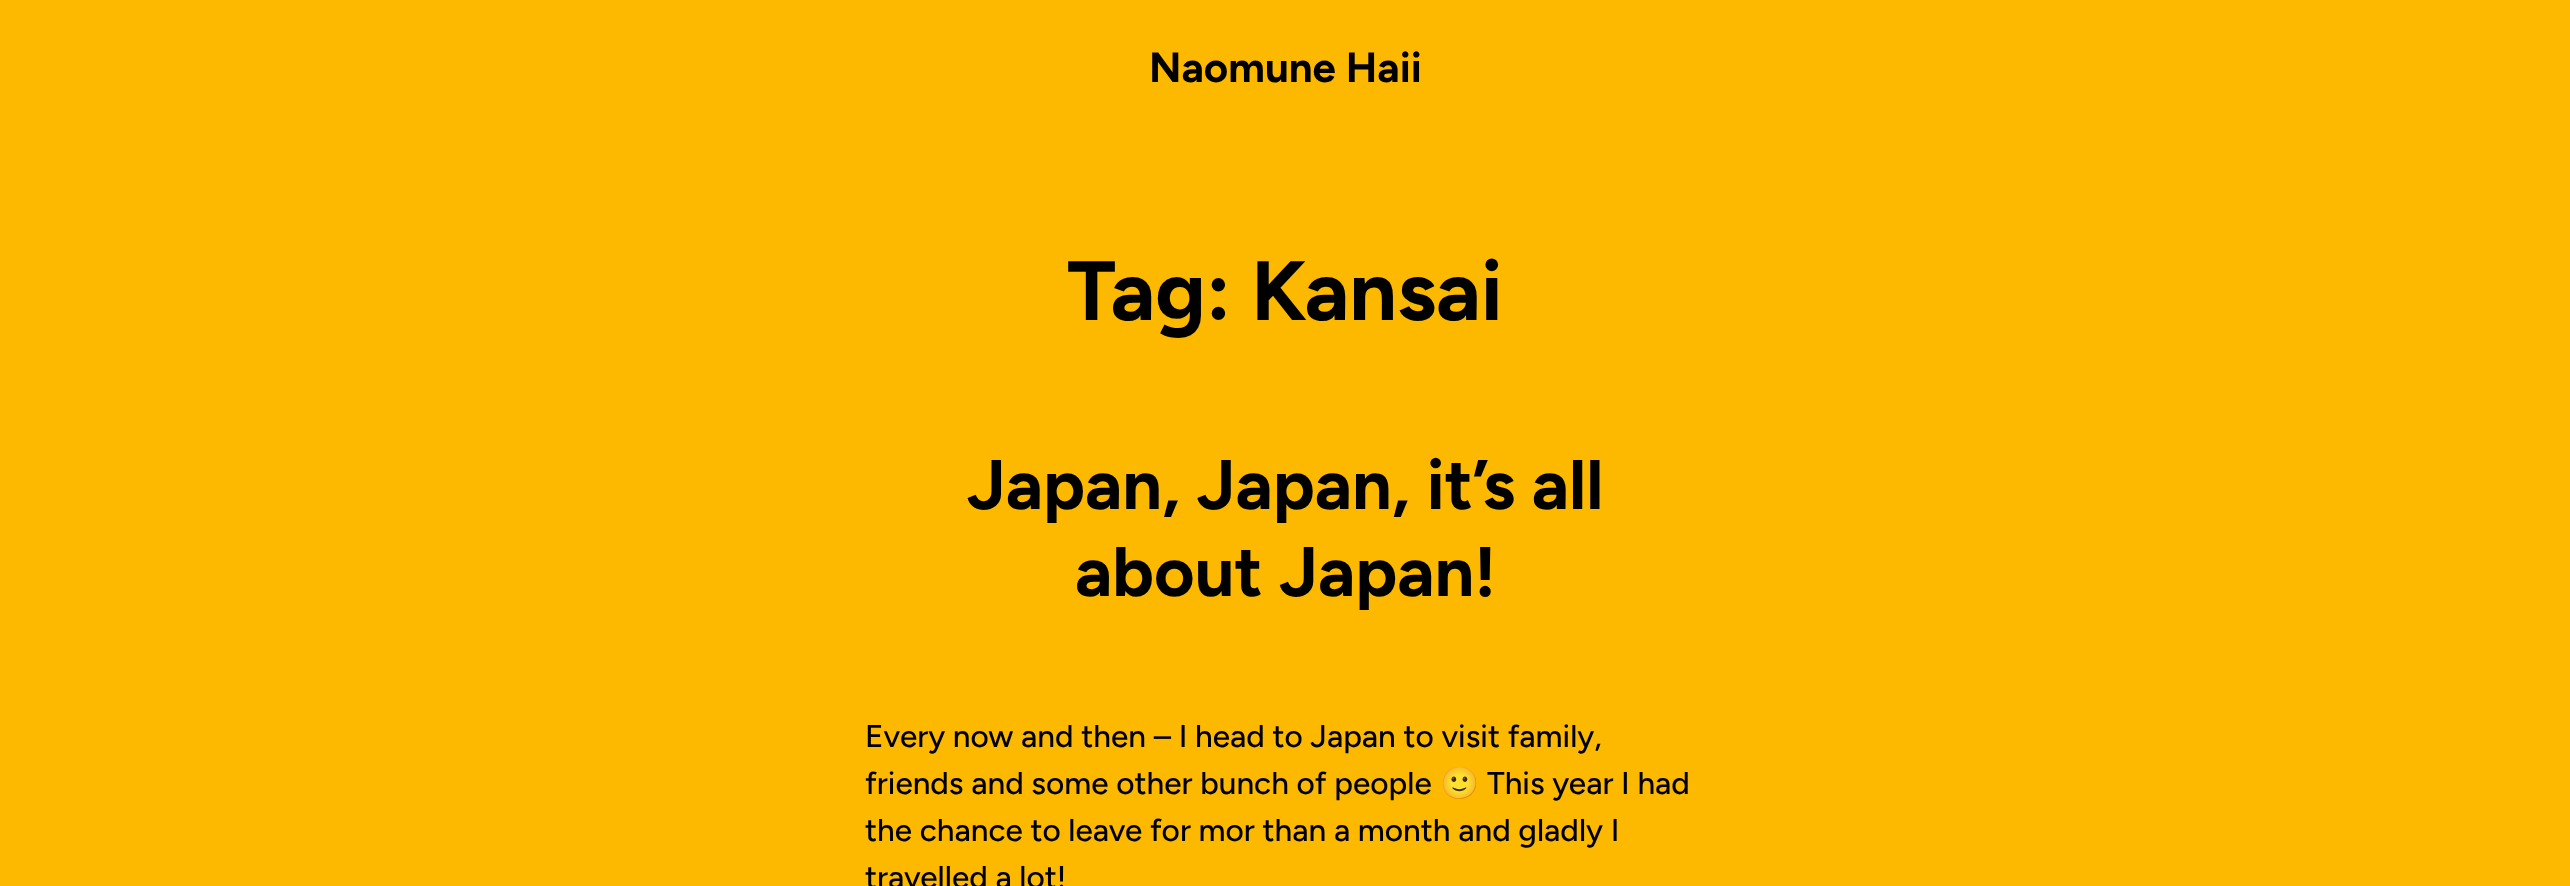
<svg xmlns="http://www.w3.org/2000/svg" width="2570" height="886">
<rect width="100%" height="100%" fill="#fcb900"/>
<text x="1149" y="82" style="font-family:Figtree;font-size:42px;font-weight:bold;fill:#000">Naomune Haii</text>
<text x="1067" y="320" style="font-family:Figtree;font-size:84px;font-weight:bold;fill:#000">Tag: Kansai</text>
<text x="967" y="509" style="font-family:Figtree;font-size:70px;font-weight:bold;fill:#000">Japan, Japan, it’s all</text>
<text x="1075" y="596" style="font-family:Figtree;font-size:70px;font-weight:bold;fill:#000">about Japan!</text>
<text x="865" y="747" style="font-family:Figtree;font-size:31.5px;font-weight:500;fill:#000">Every now and then – I head to Japan to visit family,</text>
<text x="865" y="794" style="font-family:Figtree;font-size:31.5px;font-weight:500;fill:#000">friends and some other bunch of people</text>
<text x="1440" y="794" style="font-family:Noto Color Emoji;font-size:31.5px;fill:#000">🙂</text>
<text x="1487" y="794" style="font-family:Figtree;font-size:31.5px;font-weight:500;fill:#000">This year I had</text>
<text x="865" y="841" style="font-family:Figtree;font-size:31.5px;font-weight:500;fill:#000">the chance to leave for mor than a month and gladly I</text>
<text x="865" y="888" style="font-family:Figtree;font-size:31.5px;font-weight:500;fill:#000">travelled a lot!</text>
</svg>
